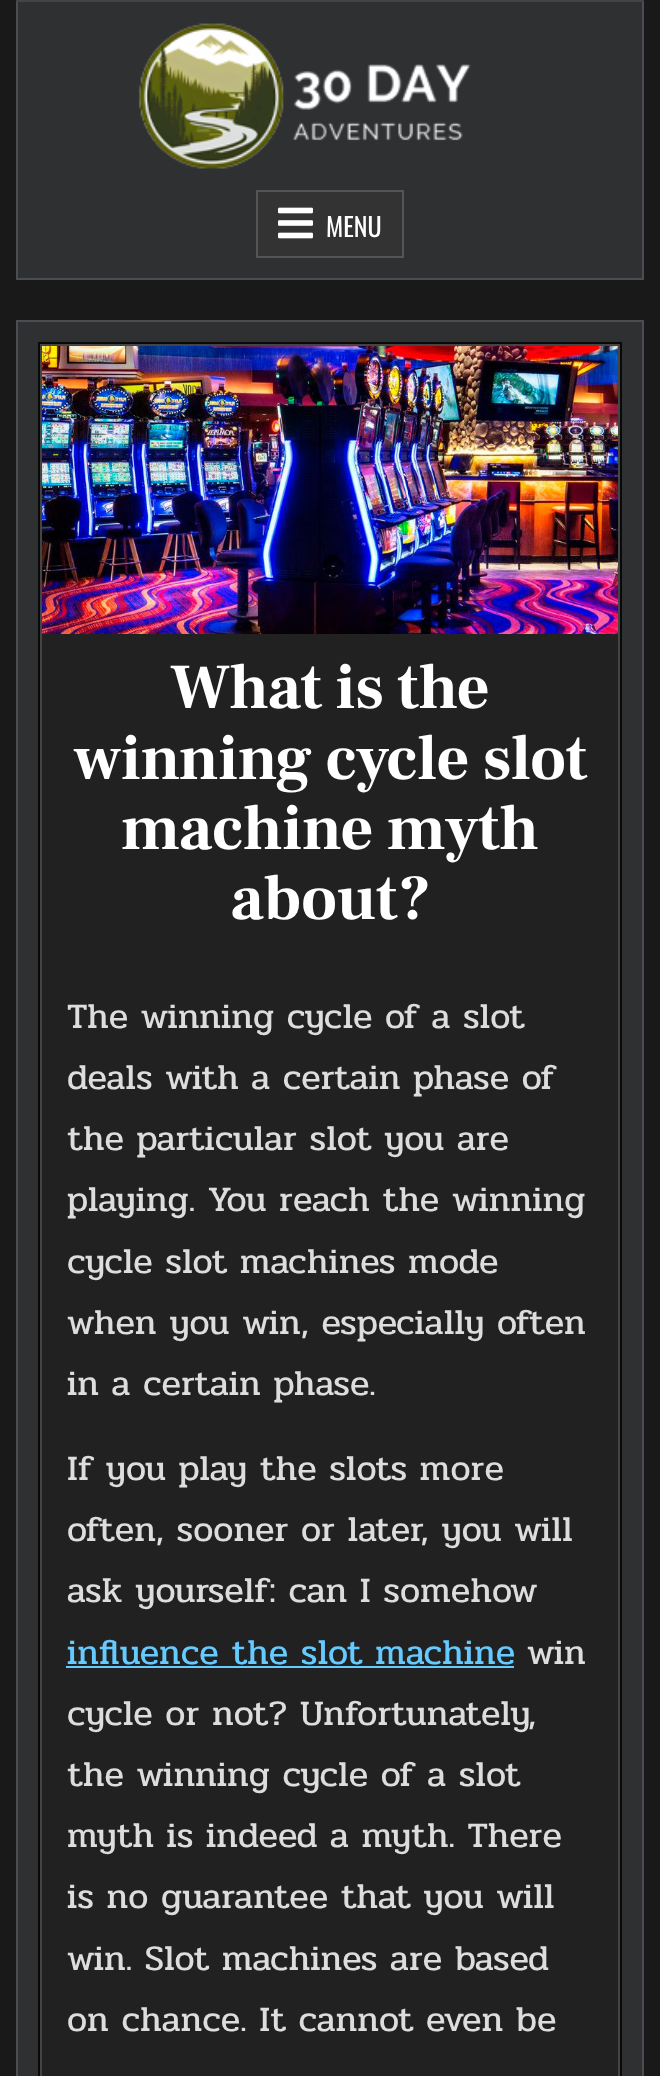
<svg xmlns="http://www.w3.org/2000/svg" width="660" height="2076">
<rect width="100%" height="100%" fill="#191919"/>
<rect x="16" width="628" height="2" fill="#444"/>
<rect x="18" y="2" width="624" height="276" fill="#2f3031"/>
<rect x="642" y="2" width="2" height="278" fill="#4a4e53"/>
<rect x="16" y="278" width="628" height="2" fill="#4a4e53"/>
<rect x="16" y="2" width="2" height="278" fill="#4a4e53"/>
<image x="138" y="23" width="333" height="146" href="media/1.png"/>
<rect x="257" y="191" width="146" height="66" fill="#333" stroke="#555" stroke-width="2"/>
<image x="278" y="207" width="35" height="32" href="media/2.png"/>
<text x="326" y="237" style="font-family:Oswald;font-size:26px;fill:#fff">MENU</text>
<rect x="17" y="321" width="626" height="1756" fill="#2f3031" stroke="#4a4e53" stroke-width="2"/>
<rect x="42" y="634" width="576" height="1442" fill="#212121"/>
<rect x="39" y="343" width="582" height="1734" fill="none" stroke="#090909" stroke-width="2"/>
<rect x="41" y="345" width="578" height="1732" fill="none" stroke="#444" stroke-width="2"/>
<image x="42" y="346" width="576" height="288" href="media/3.png"/>
<text x="170" y="708" style="font-family:Frank Ruhl Libre;font-size:64px;font-weight:bold;letter-spacing:-0.4px;fill:#fff">What is the</text>
<text x="74" y="779" style="font-family:Frank Ruhl Libre;font-size:64px;font-weight:bold;letter-spacing:-0.4px;fill:#fff">winning cycle slot</text>
<text x="121" y="849" style="font-family:Frank Ruhl Libre;font-size:64px;font-weight:bold;letter-spacing:-0.4px;fill:#fff">machine myth</text>
<text x="230" y="919" style="font-family:Frank Ruhl Libre;font-size:64px;font-weight:bold;letter-spacing:-0.4px;fill:#fff">about?</text>
<text x="67" y="1028" style="font-family:Pridi;font-size:36px;fill:#ddd">The winning cycle of a slot</text>
<text x="67" y="1089" style="font-family:Pridi;font-size:36px;fill:#ddd">deals with a certain phase of</text>
<text x="67" y="1150" style="font-family:Pridi;font-size:36px;fill:#ddd">the particular slot you are</text>
<text x="67" y="1211" style="font-family:Pridi;font-size:36px;fill:#ddd">playing. You reach the winning</text>
<text x="67" y="1273" style="font-family:Pridi;font-size:36px;fill:#ddd">cycle slot machines mode</text>
<text x="67" y="1334" style="font-family:Pridi;font-size:36px;fill:#ddd">when you win, especially often</text>
<text x="67" y="1395" style="font-family:Pridi;font-size:36px;fill:#ddd">in a certain phase.</text>
<text x="67" y="1480" style="font-family:Pridi;font-size:36px;fill:#ddd">If you play the slots more</text>
<text x="67" y="1541" style="font-family:Pridi;font-size:36px;fill:#ddd">often, sooner or later, you will</text>
<text x="67" y="1602" style="font-family:Pridi;font-size:36px;fill:#ddd">ask yourself: can I somehow</text>
<text x="67" y="1664" style="font-family:Pridi;font-size:36px;fill:#64caff">influence the slot machine</text>
<rect x="66" y="1666" width="448" height="2" fill="#64caff"/>
<text x="527" y="1664" style="font-family:Pridi;font-size:36px;fill:#ddd">win</text>
<text x="67" y="1725" style="font-family:Pridi;font-size:36px;fill:#ddd">cycle or not? Unfortunately,</text>
<text x="67" y="1786" style="font-family:Pridi;font-size:36px;fill:#ddd">the winning cycle of a slot</text>
<text x="67" y="1847" style="font-family:Pridi;font-size:36px;fill:#ddd">myth is indeed a myth. There</text>
<text x="67" y="1908" style="font-family:Pridi;font-size:36px;fill:#ddd">is no guarantee that you will</text>
<text x="67" y="1970" style="font-family:Pridi;font-size:36px;fill:#ddd">win. Slot machines are based</text>
<text x="67" y="2031" style="font-family:Pridi;font-size:36px;fill:#ddd">on chance. It cannot even be</text>
</svg>
